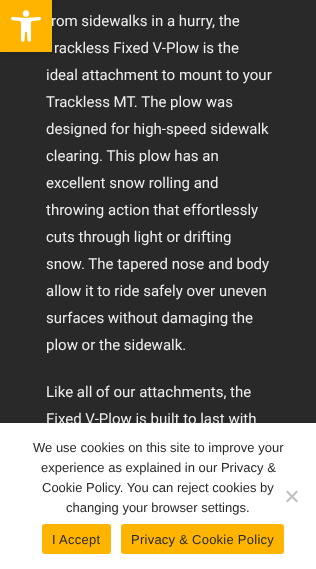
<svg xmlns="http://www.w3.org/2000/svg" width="316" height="569">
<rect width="100%" height="100%" fill="#29292a"/>
<rect width="52" height="52" fill="#00000033" filter="blur(5px)"/>
<rect width="52" height="52" fill="#ffb500"/>
<image x="11" y="10" width="30" height="32" href="media/1.png"/>
<text x="51" y="26" style="font-family:Roboto;font-size:15px;fill:#eee">rom sidewalks in a hurry, the</text>
<text x="54" y="53" style="font-family:Roboto;font-size:15px;fill:#eee">rackless Fixed V-Plow is the</text>
<text x="46" y="80" style="font-family:Roboto;font-size:15px;fill:#eee">ideal attachment to mount to your</text>
<text x="46" y="107" style="font-family:Roboto;font-size:15px;fill:#eee">Trackless MT. The plow was</text>
<text x="46" y="134" style="font-family:Roboto;font-size:15px;fill:#eee">designed for high-speed sidewalk</text>
<text x="46" y="161" style="font-family:Roboto;font-size:15px;fill:#eee">clearing. This plow has an</text>
<text x="46" y="188" style="font-family:Roboto;font-size:15px;fill:#eee">excellent snow rolling and</text>
<text x="46" y="215" style="font-family:Roboto;font-size:15px;fill:#eee">throwing action that effortlessly</text>
<text x="46" y="242" style="font-family:Roboto;font-size:15px;fill:#eee">cuts through light or drifting</text>
<text x="46" y="269" style="font-family:Roboto;font-size:15px;fill:#eee">snow. The tapered nose and body</text>
<text x="46" y="296" style="font-family:Roboto;font-size:15px;fill:#eee">allow it to ride safely over uneven</text>
<text x="46" y="323" style="font-family:Roboto;font-size:15px;fill:#eee">surfaces without damaging the</text>
<text x="46" y="350" style="font-family:Roboto;font-size:15px;fill:#eee">plow or the sidewalk.</text>
<text x="46" y="397" style="font-family:Roboto;font-size:15px;fill:#eee">Like all of our attachments, the</text>
<text x="46" y="424" style="font-family:Roboto;font-size:15px;fill:#eee">Fixed V-Plow is built to last with</text>
<rect y="423" width="316" height="146" fill="#fff"/>
<text x="33" y="452" style="font-family:Liberation Sans;font-size:13px;fill:#29292a">We use cookies on this site to improve your</text>
<text x="41" y="472" style="font-family:Liberation Sans;font-size:13px;fill:#29292a">experience as explained in our Privacy &amp;</text>
<text x="42" y="492" style="font-family:Liberation Sans;font-size:13px;fill:#29292a">Cookie Policy. You can reject cookies by</text>
<text x="66" y="512" style="font-family:Liberation Sans;font-size:13px;fill:#29292a">changing your browser settings.</text>
<path d="M296.5 490.5l1.5 1.5l-10.5 10.5l-1.5-1.5z" fill="#c0c0c0"/>
<path d="M286 492l1.5-1.5l10.5 10.5l-1.5 1.5z" fill="#c0c0c0"/>
<rect x="42" y="524" width="69" height="30" rx="3" fill="#ffb500"/>
<text x="52" y="544" style="font-family:Liberation Sans;font-size:13px;letter-spacing:0.25px;fill:#29292a">I Accept</text>
<rect x="121" y="524" width="163" height="30" rx="3" fill="#ffb500"/>
<text x="131" y="544" style="font-family:Liberation Sans;font-size:13px;letter-spacing:0.25px;fill:#29292a">Privacy &amp; Cookie Policy</text>
</svg>
